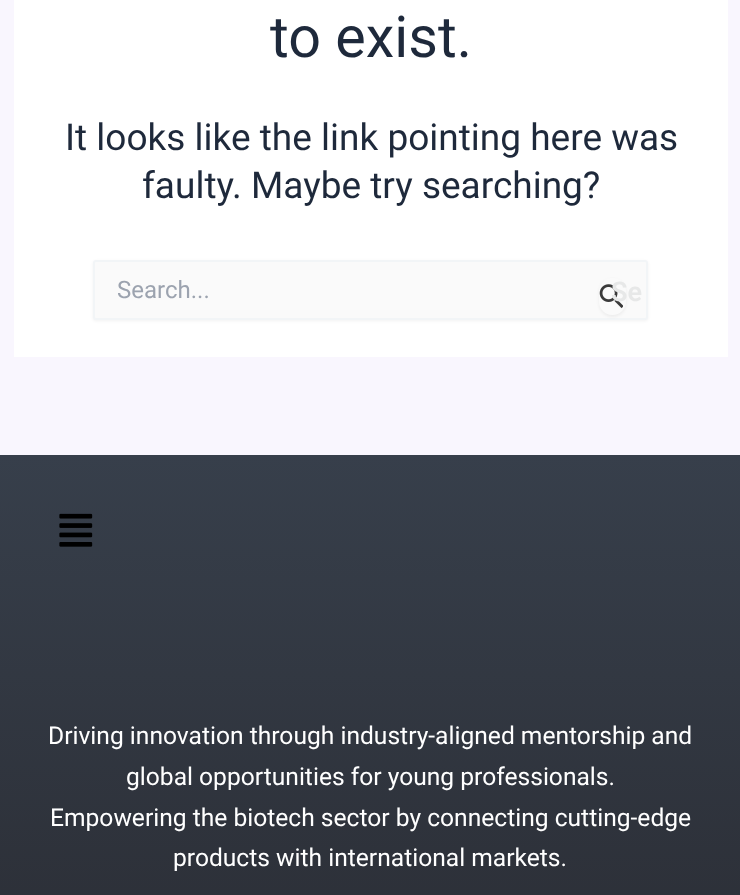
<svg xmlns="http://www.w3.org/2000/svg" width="740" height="895">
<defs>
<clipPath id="clip1"><path d="M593 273h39v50h-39zm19.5 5c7.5 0 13.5 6 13.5 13.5v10c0 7.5-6 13.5-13.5 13.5c-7.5 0-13.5-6-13.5-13.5v-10c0-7.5 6-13.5 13.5-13.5z" clip-rule="evenodd"/></clipPath>
<linearGradient id="g1" gradientUnits="userSpaceOnUse" x1="370" y1="454" x2="371" y2="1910"><stop offset="0" stop-color="#373f4b"/><stop offset="1" stop-color="#161010"/></linearGradient>
</defs>
<rect width="100%" height="100%" fill="#f9f6fe"/>
<rect x="14" width="714" height="357" fill="#fff"/>
<text x="270" y="57" style="font-family:Roboto;font-size:57.5px;fill:#1e293b">to exist.</text>
<text x="65" y="150" style="font-family:Roboto;font-size:37px;fill:#1e293b">It looks like the link pointing here was</text>
<text x="142" y="198" style="font-family:Roboto;font-size:37px;fill:#1e293b">faulty. Maybe try searching?</text>
<rect x="93" y="261" width="555" height="60" rx="3" fill="#0000000d" filter="blur(1.5px)"/>
<rect x="94" y="261" width="553" height="58" rx="2" fill="#fafafa" stroke="#f2f5f7" stroke-width="2"/>
<text x="117" y="298" style="font-family:Roboto;font-size:24px;fill:#9ca3af">Search...</text>
<g clip-path="url(#clip1)">
<rect x="599" y="279" width="27" height="38" rx="13.5" fill="#0000000d" filter="blur(1.5px)"/>
</g>
<image x="599" y="284" width="24" height="25" href="media/1.png"/>
<text x="611" y="301" style="font-family:Roboto;font-size:27px;font-weight:600;fill:#e7e8e8">Se</text>
<rect y="455" width="740" height="440" fill="url(#g1)"/>
<image x="59" y="513" width="34" height="34" href="media/2.png"/>
<text x="48" y="744" style="font-family:Roboto;font-size:24.6px;fill:#fff">Driving innovation through industry-aligned mentorship and</text>
<text x="126" y="785" style="font-family:Roboto;font-size:24.6px;fill:#fff">global opportunities for young professionals.</text>
<text x="50" y="826" style="font-family:Roboto;font-size:24.6px;fill:#fff">Empowering the biotech sector by connecting cutting-edge</text>
<text x="173" y="866" style="font-family:Roboto;font-size:24.6px;fill:#fff">products with international markets.</text>
</svg>
